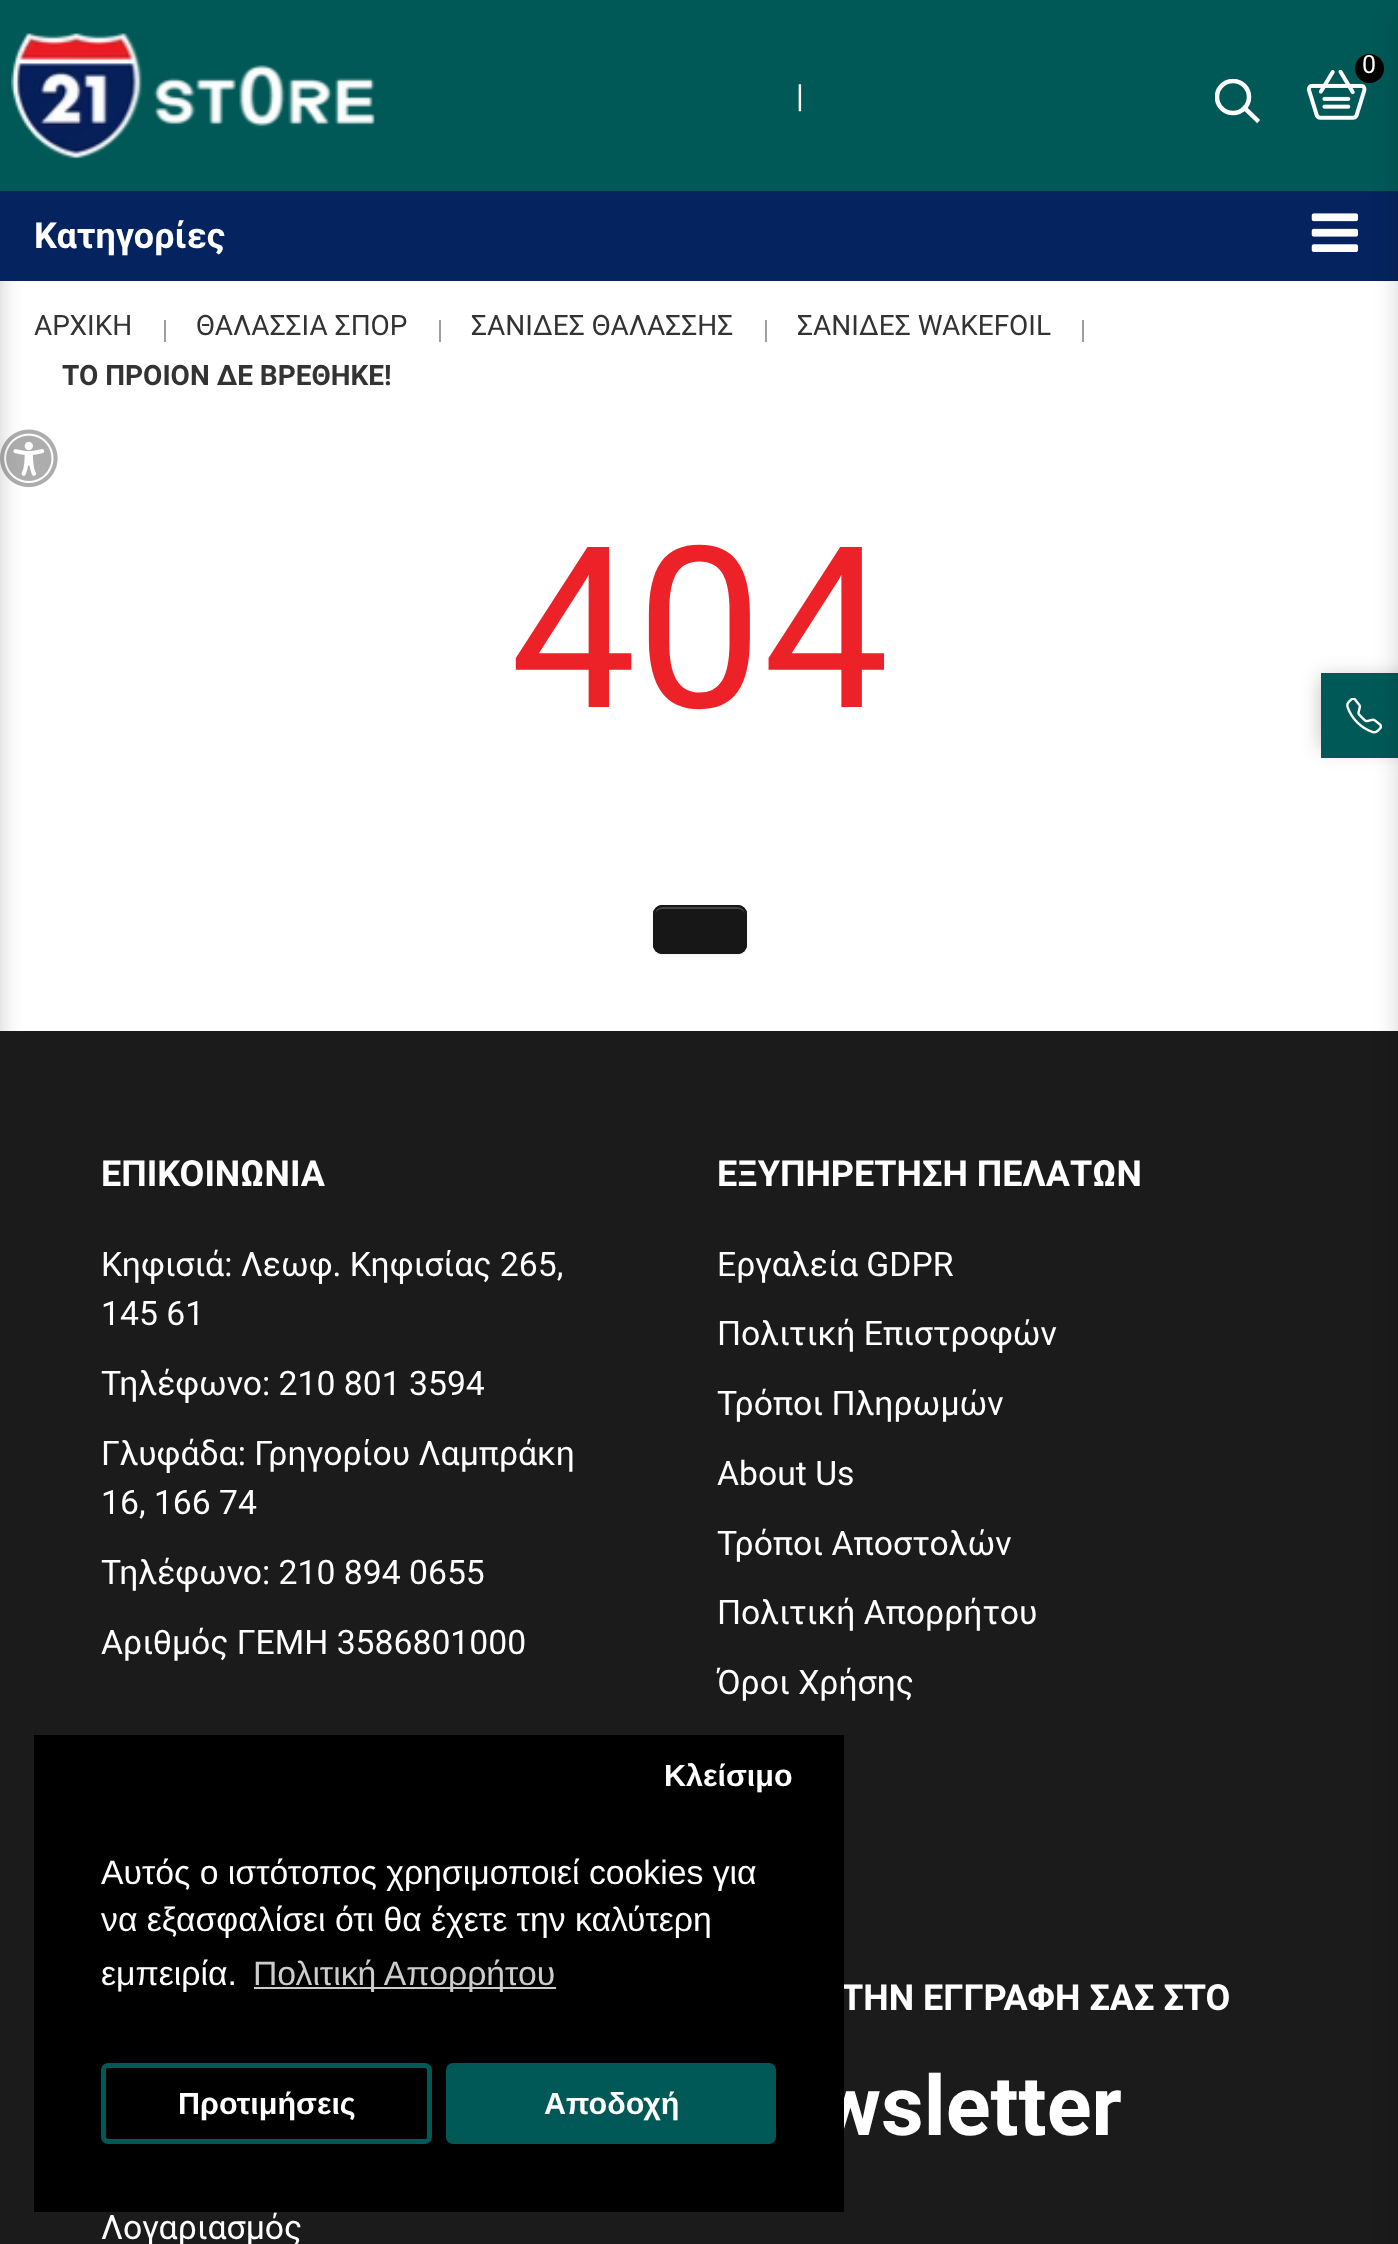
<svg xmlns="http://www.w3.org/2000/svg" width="1398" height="2244">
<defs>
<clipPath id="clip1"><rect x="1215" y="79" width="45" height="45"/></clipPath>
</defs>
<rect width="100%" height="100%" fill="#fff"/>
<rect x="-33" y="113" width="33" height="1109" fill="#00000033" filter="blur(11px)"/>
<image x="0" y="429" width="58" height="59" href="media/1.png"/>
<rect y="191" width="1398" height="90" fill="#05235e"/>
<text x="34" y="248" style="font-family:Roboto;font-size:36px;font-weight:bold;fill:#fff">Κατηγορίες</text>
<image x="1311" y="213" width="48" height="39" href="media/2.png"/>
<rect width="1398" height="191" fill="#005957"/>
<image x="11" y="33" width="364" height="127" href="media/3.png"/>
<image x="1306" y="70" width="61" height="50" href="media/4.png"/>
<circle cx="1369.5" cy="68.5" r="14.5" fill="#000"/>
<rect x="1321" y="677" width="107" height="72" fill="#0000003d" filter="blur(10px)"/>
<rect x="1321" y="673" width="77" height="85" fill="#005957"/>
<image x="1346" y="698" width="36" height="36" href="media/5.png"/>
<rect y="1031" width="1398" height="1213" fill="#1b1b1b"/>
<rect x="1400" y="14" width="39" height="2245" fill="#0000002e" filter="blur(13.5px)"/>
<text x="1362" y="73" style="font-family:Roboto;font-size:25px;fill:#fff">0</text>
<path d="M1257 120l-12.5-12" fill="none" stroke="#fff" stroke-width="4.5" stroke-linecap="square"/>
<g clip-path="url(#clip1)">
<circle cx="1233" cy="97" r="16" fill="none" stroke="#fff" stroke-width="4.5"/>
</g>
<text x="796" y="107" style="font-family:Roboto;font-size:32px;fill:#fff">|</text>
<text x="34" y="335" style="font-family:Roboto;font-size:28px;fill:#333">ΑΡΧΙΚΗ</text>
<rect x="164" y="320" width="2" height="22" fill="#9f9f9f"/>
<text x="196" y="335" style="font-family:Roboto;font-size:28px;fill:#333">ΘΑΛΑΣΣΙΑ ΣΠΟΡ</text>
<rect x="439" y="320" width="2" height="22" fill="#9f9f9f"/>
<text x="471" y="335" style="font-family:Roboto;font-size:28px;fill:#333">ΣΑΝΙΔΕΣ ΘΑΛΑΣΣΗΣ</text>
<rect x="765" y="320" width="2" height="22" fill="#9f9f9f"/>
<text x="797" y="335" style="font-family:Roboto;font-size:28px;fill:#333">ΣΑΝΙΔΕΣ WAKEFOIL</text>
<rect x="1082" y="320" width="2" height="22" fill="#9f9f9f"/>
<text x="62" y="385" style="font-family:Roboto;font-size:28px;font-weight:bold;fill:#333">ΤΟ ΠΡΟΙΟΝ ΔΕ ΒΡΕΘΗΚΕ!</text>
<text x="510" y="707" style="font-family:Roboto;font-size:225px;fill:#ed2229">404</text>
<rect x="653" y="907" width="94" height="49" rx="9" fill="#0000000d" filter="blur(2px)"/>
<rect x="653" y="905" width="94" height="49" rx="9" fill="#171717"/>
<path d="M662 909h76c4 0 7 3 7 7c0-12-10-9-20-9h-50c-10 0-20-3-20 9c0-4 3-7 7-7z" fill="#454545"/>
<rect x="654" y="906" width="92" height="47" rx="8" fill="none" stroke="#171717" stroke-width="2"/>
<text x="101" y="1186" style="font-family:Roboto;font-size:36px;font-weight:bold;fill:#fff">ΕΠΙΚΟΙΝΩΝΙΑ</text>
<text x="101" y="1276" style="font-family:Roboto;font-size:33.75px;fill:#fff">Κηφισιά: Λεωφ. Κηφισίας 265,</text>
<text x="101" y="1325" style="font-family:Roboto;font-size:33.75px;fill:#fff">145 61</text>
<text x="101" y="1395" style="font-family:Roboto;font-size:33.75px;fill:#fff">Τηλέφωνο: 210 801 3594</text>
<text x="101" y="1465" style="font-family:Roboto;font-size:33.75px;fill:#fff">Γλυφάδα: Γρηγορίου Λαμπράκη</text>
<text x="101" y="1514" style="font-family:Roboto;font-size:33.75px;fill:#fff">16, 166 74</text>
<text x="101" y="1584" style="font-family:Roboto;font-size:33.75px;fill:#fff">Τηλέφωνο: 210 894 0655</text>
<text x="101" y="1654" style="font-family:Roboto;font-size:33.75px;fill:#fff">Αριθμός ΓΕΜΗ 3586801000</text>
<text x="717" y="1186" style="font-family:Roboto;font-size:36px;font-weight:bold;fill:#fff">ΕΞΥΠΗΡΕΤΗΣΗ ΠΕΛΑΤΩΝ</text>
<text x="717" y="1276" style="font-family:Roboto;font-size:33.75px;fill:#fff">Εργαλεία GDPR</text>
<text x="717" y="1345" style="font-family:Roboto;font-size:33.75px;fill:#fff">Πολιτική Επιστροφών</text>
<text x="717" y="1415" style="font-family:Roboto;font-size:33.75px;fill:#fff">Τρόποι Πληρωμών</text>
<text x="717" y="1485" style="font-family:Roboto;font-size:33.75px;fill:#fff">About Us</text>
<text x="717" y="1555" style="font-family:Roboto;font-size:33.75px;fill:#fff">Τρόποι Αποστολών</text>
<text x="717" y="1624" style="font-family:Roboto;font-size:33.75px;fill:#fff">Πολιτική Απορρήτου</text>
<text x="717" y="1694" style="font-family:Roboto;font-size:33.75px;fill:#fff">Όροι Χρήσης</text>
<text x="841" y="2010" style="font-family:Roboto;font-size:36px;font-weight:bold;fill:#fff">ΤΗΝ ΕΓΓΡΑΦΗ ΣΑΣ ΣΤΟ</text>
<text x="820" y="2135" style="font-family:Roboto;font-size:83px;font-weight:bold;fill:#fff">wsletter</text>
<text x="101" y="2239" style="font-family:Roboto;font-size:33.75px;fill:#fff">Λογαριασμός</text>
<rect x="34" y="1735" width="810" height="477" fill="#000001"/>
<text x="664" y="1786" style="font-family:Liberation Sans;font-size:30.5px;font-weight:bold;fill:#fff">Κλείσιμο</text>
<rect x="103.5" y="2065.5" width="326" height="76" rx="4.5" fill="none" stroke="#005957" stroke-width="5"/>
<text x="178" y="2114" style="font-family:Liberation Sans;font-size:30.5px;font-weight:bold;fill:#fff">Προτιμήσεις</text>
<rect x="446" y="2063" width="330" height="81" rx="7" fill="#005957"/>
<text x="544" y="2114" style="font-family:Liberation Sans;font-size:30.5px;font-weight:bold;fill:#fff">Αποδοχή</text>
<text x="101" y="1884" style="font-family:Liberation Sans;font-size:33.75px;fill:#fff">Αυτός ο ιστότοπος χρησιμοποιεί cookies για</text>
<text x="101" y="1931" style="font-family:Liberation Sans;font-size:33.75px;fill:#fff">να εξασφαλίσει ότι θα έχετε την καλύτερη</text>
<text x="101" y="1985" style="font-family:Liberation Sans;font-size:33.75px;fill:#fff">εμπειρία.</text>
<rect x="254" y="1987" width="302" height="2" fill="#ccc"/>
<text x="253" y="1985" style="font-family:Liberation Sans;font-size:33.75px;fill:#ccc">Πολιτική Απορρήτου</text>
</svg>
